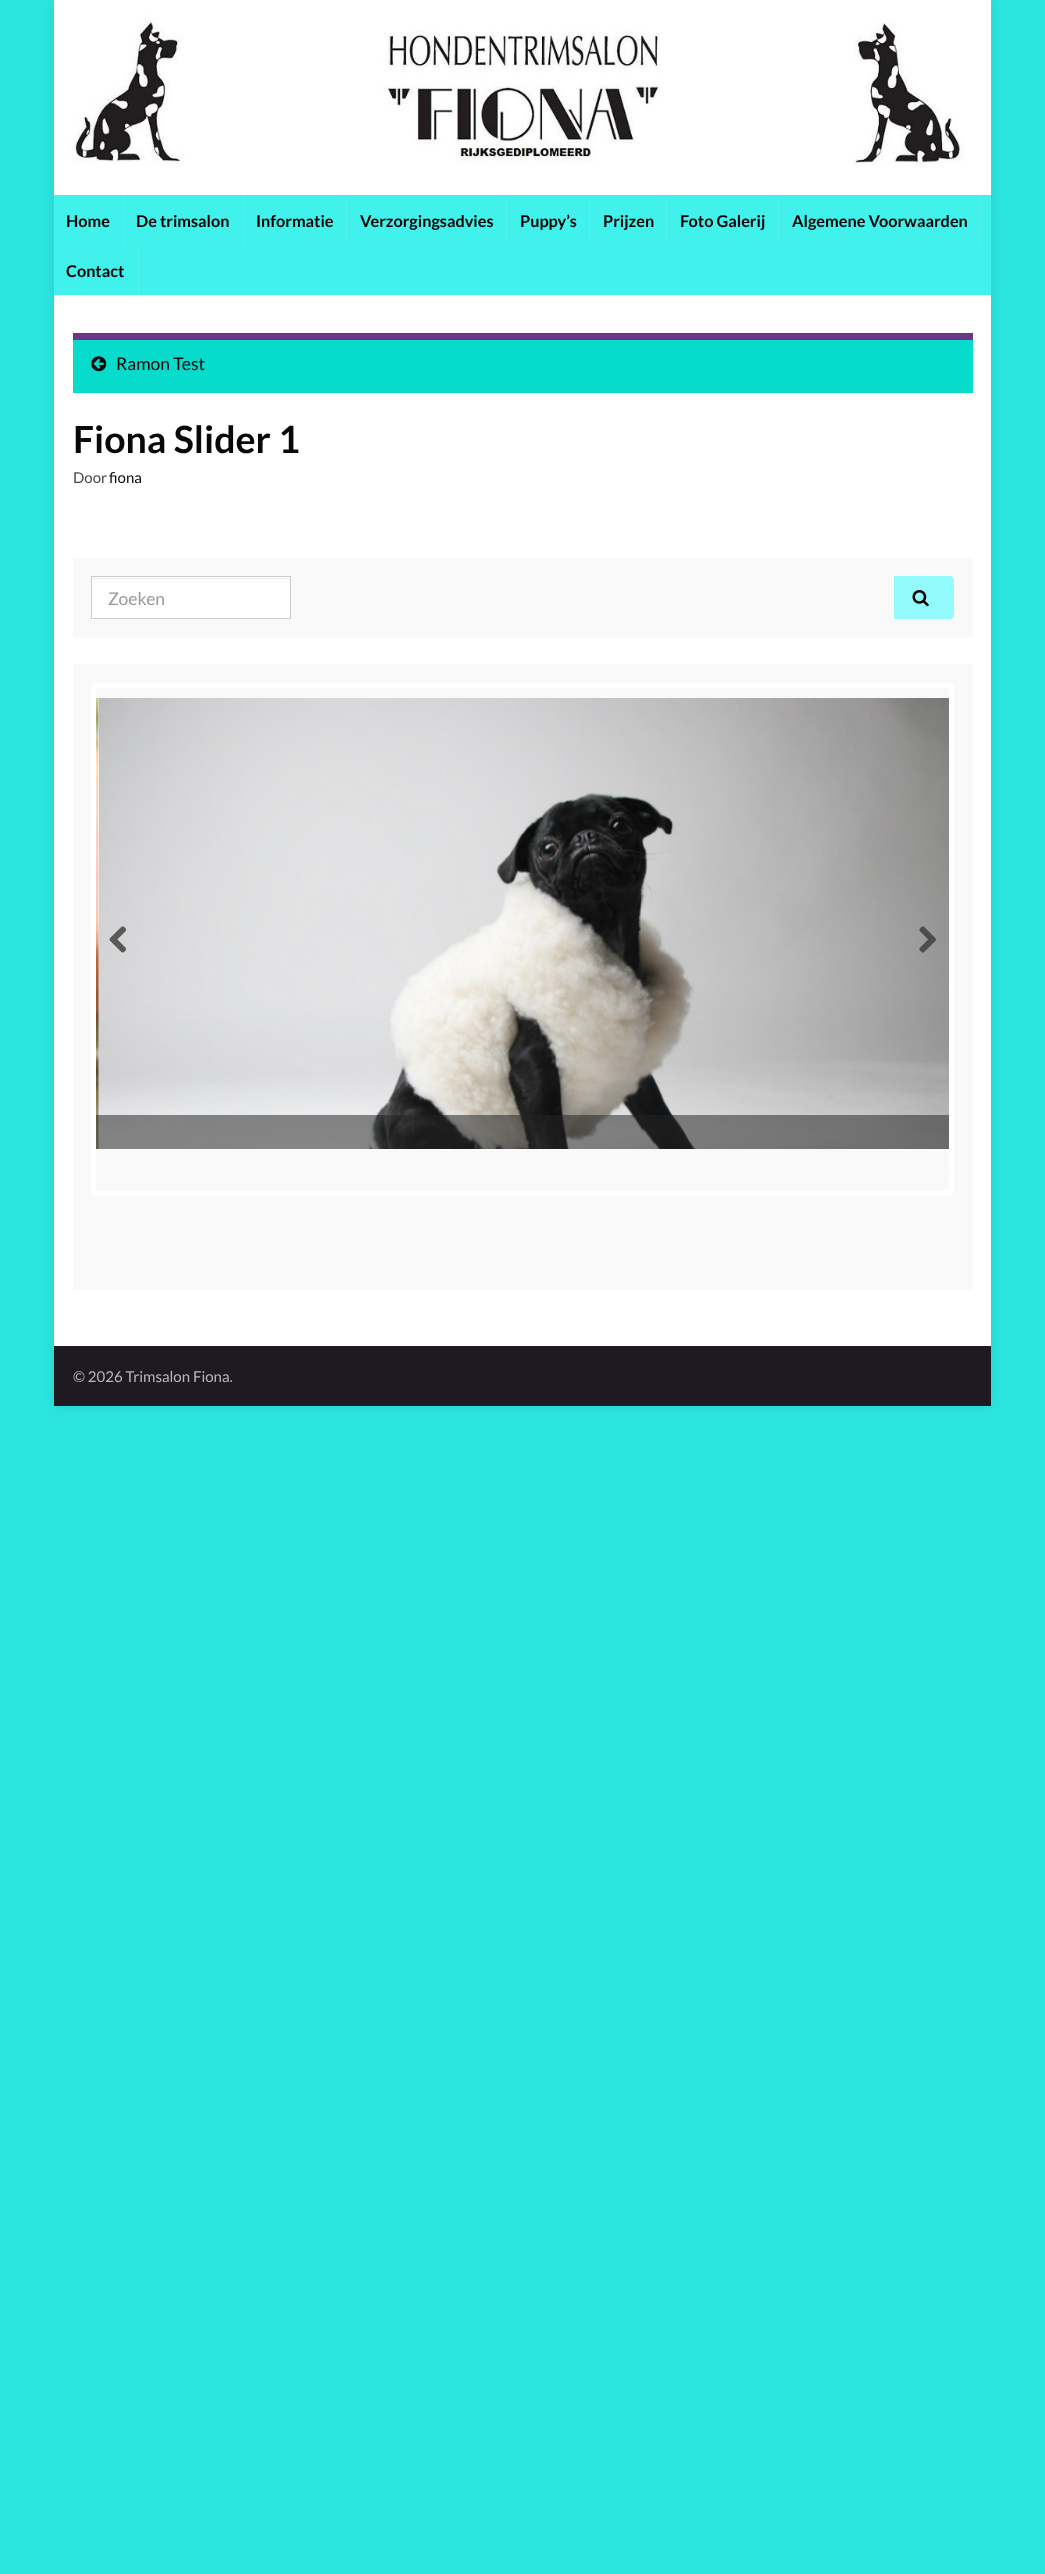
<svg xmlns="http://www.w3.org/2000/svg" width="1045" height="2574">
<rect width="100%" height="100%" fill="#2de5df"/>
<rect x="54" width="937" height="1406" fill="#0000001a" filter="blur(6px)"/>
<image x="53" y="0" width="939" height="195" href="media/1.png"/>
<rect x="54" y="195" width="937" height="100" fill="#41f1eb"/>
<rect x="123" y="195" width="1" height="50" fill="#54f2ed"/>
<text x="66" y="227" style="font-family:Lato;font-size:16.25px;font-weight:bold;fill:#000">Home</text>
<rect x="243" y="195" width="1" height="50" fill="#54f2ed"/>
<text x="136" y="227" style="font-family:Lato;font-size:16.25px;font-weight:bold;fill:#000">De trimsalon</text>
<rect x="346" y="195" width="1" height="50" fill="#54f2ed"/>
<text x="256" y="227" style="font-family:Lato;font-size:16.25px;font-weight:bold;fill:#000">Informatie</text>
<rect x="506" y="195" width="1" height="50" fill="#54f2ed"/>
<text x="360" y="227" style="font-family:Lato;font-size:16.25px;font-weight:bold;fill:#000">Verzorgingsadvies</text>
<rect x="589" y="195" width="1" height="50" fill="#54f2ed"/>
<text x="520" y="227" style="font-family:Lato;font-size:16.25px;font-weight:bold;fill:#000">Puppy’s</text>
<rect x="666" y="195" width="1" height="50" fill="#54f2ed"/>
<text x="603" y="227" style="font-family:Lato;font-size:16.25px;font-weight:bold;fill:#000">Prijzen</text>
<rect x="778" y="195" width="1" height="50" fill="#54f2ed"/>
<text x="680" y="227" style="font-family:Lato;font-size:16.25px;font-weight:bold;fill:#000">Foto Galerij</text>
<rect x="980" y="195" width="1" height="50" fill="#54f2ed"/>
<text x="792" y="227" style="font-family:Lato;font-size:16.25px;font-weight:bold;fill:#000">Algemene Voorwaarden</text>
<rect x="138" y="245" width="1" height="50" fill="#54f2ed"/>
<text x="66" y="277" style="font-family:Lato;font-size:16.25px;font-weight:bold;fill:#000">Contact</text>
<rect x="54" y="295" width="937" height="1051" fill="#fff"/>
<rect x="73" y="340" width="900" height="53" fill="#06dbcc"/>
<rect x="73" y="333" width="900" height="7" fill="#6b3589"/>
<image x="91" y="356" width="16" height="16" href="media/2.png"/>
<text x="116" y="370" style="font-family:Lato;font-size:17.5px;fill:#070808">Ramon Test</text>
<text x="73" y="453" style="font-family:Lato;font-size:37.5px;font-weight:bold;fill:#070808">Fiona Slider 1</text>
<text x="73" y="483" style="font-family:Lato;font-size:15px;fill:#4a474b">Door</text>
<text x="109" y="483" style="font-family:Lato;font-size:15px;fill:#070808">fiona</text>
<rect x="73" y="558" width="900" height="80" fill="#f9f9f9"/>
<rect x="92" y="577" width="198" height="41" fill="#fff"/>
<rect x="93" y="578" width="197" height="1" fill="#ececec"/>
<rect x="91.5" y="576.5" width="199" height="42" fill="none" stroke="#ccc"/>
<text x="108" y="605" style="font-family:Lato;font-size:17.5px;fill:#999">Zoeken</text>
<path d="M894 576h56c2 0 4 2 4 4v35c0 2-2 4-4 4h-56z" fill="#93fbfb"/>
<image x="912" y="590" width="17" height="17" href="media/3.png"/>
<rect x="73" y="664" width="900" height="626" fill="#f9f9f9"/>
<rect x="93.5" y="685.5" width="858" height="508" rx="2.5" fill="none" stroke="#fff" stroke-width="5"/>
<image x="96" y="698" width="3" height="451" href="media/4.png"/>
<image x="99" y="698" width="850" height="451" href="media/5.png"/>
<rect x="96" y="1115" width="853" height="34" fill="#24242487"/>
<rect x="96" y="1169" width="853" height="1" fill="#fffaff"/>
<image x="109" y="926" width="18" height="27" href="media/6.png"/>
<rect x="96" y="1190" width="853" height="1" fill="#fffaff"/>
<image x="919" y="926" width="17" height="27" href="media/7.png"/>
<rect x="54" y="1346" width="937" height="60" fill="#1f1a22"/>
<text x="73" y="1382" style="font-family:Lato;font-size:15px;fill:#bcb4c1">© 2026 Trimsalon Fiona.</text>
</svg>
